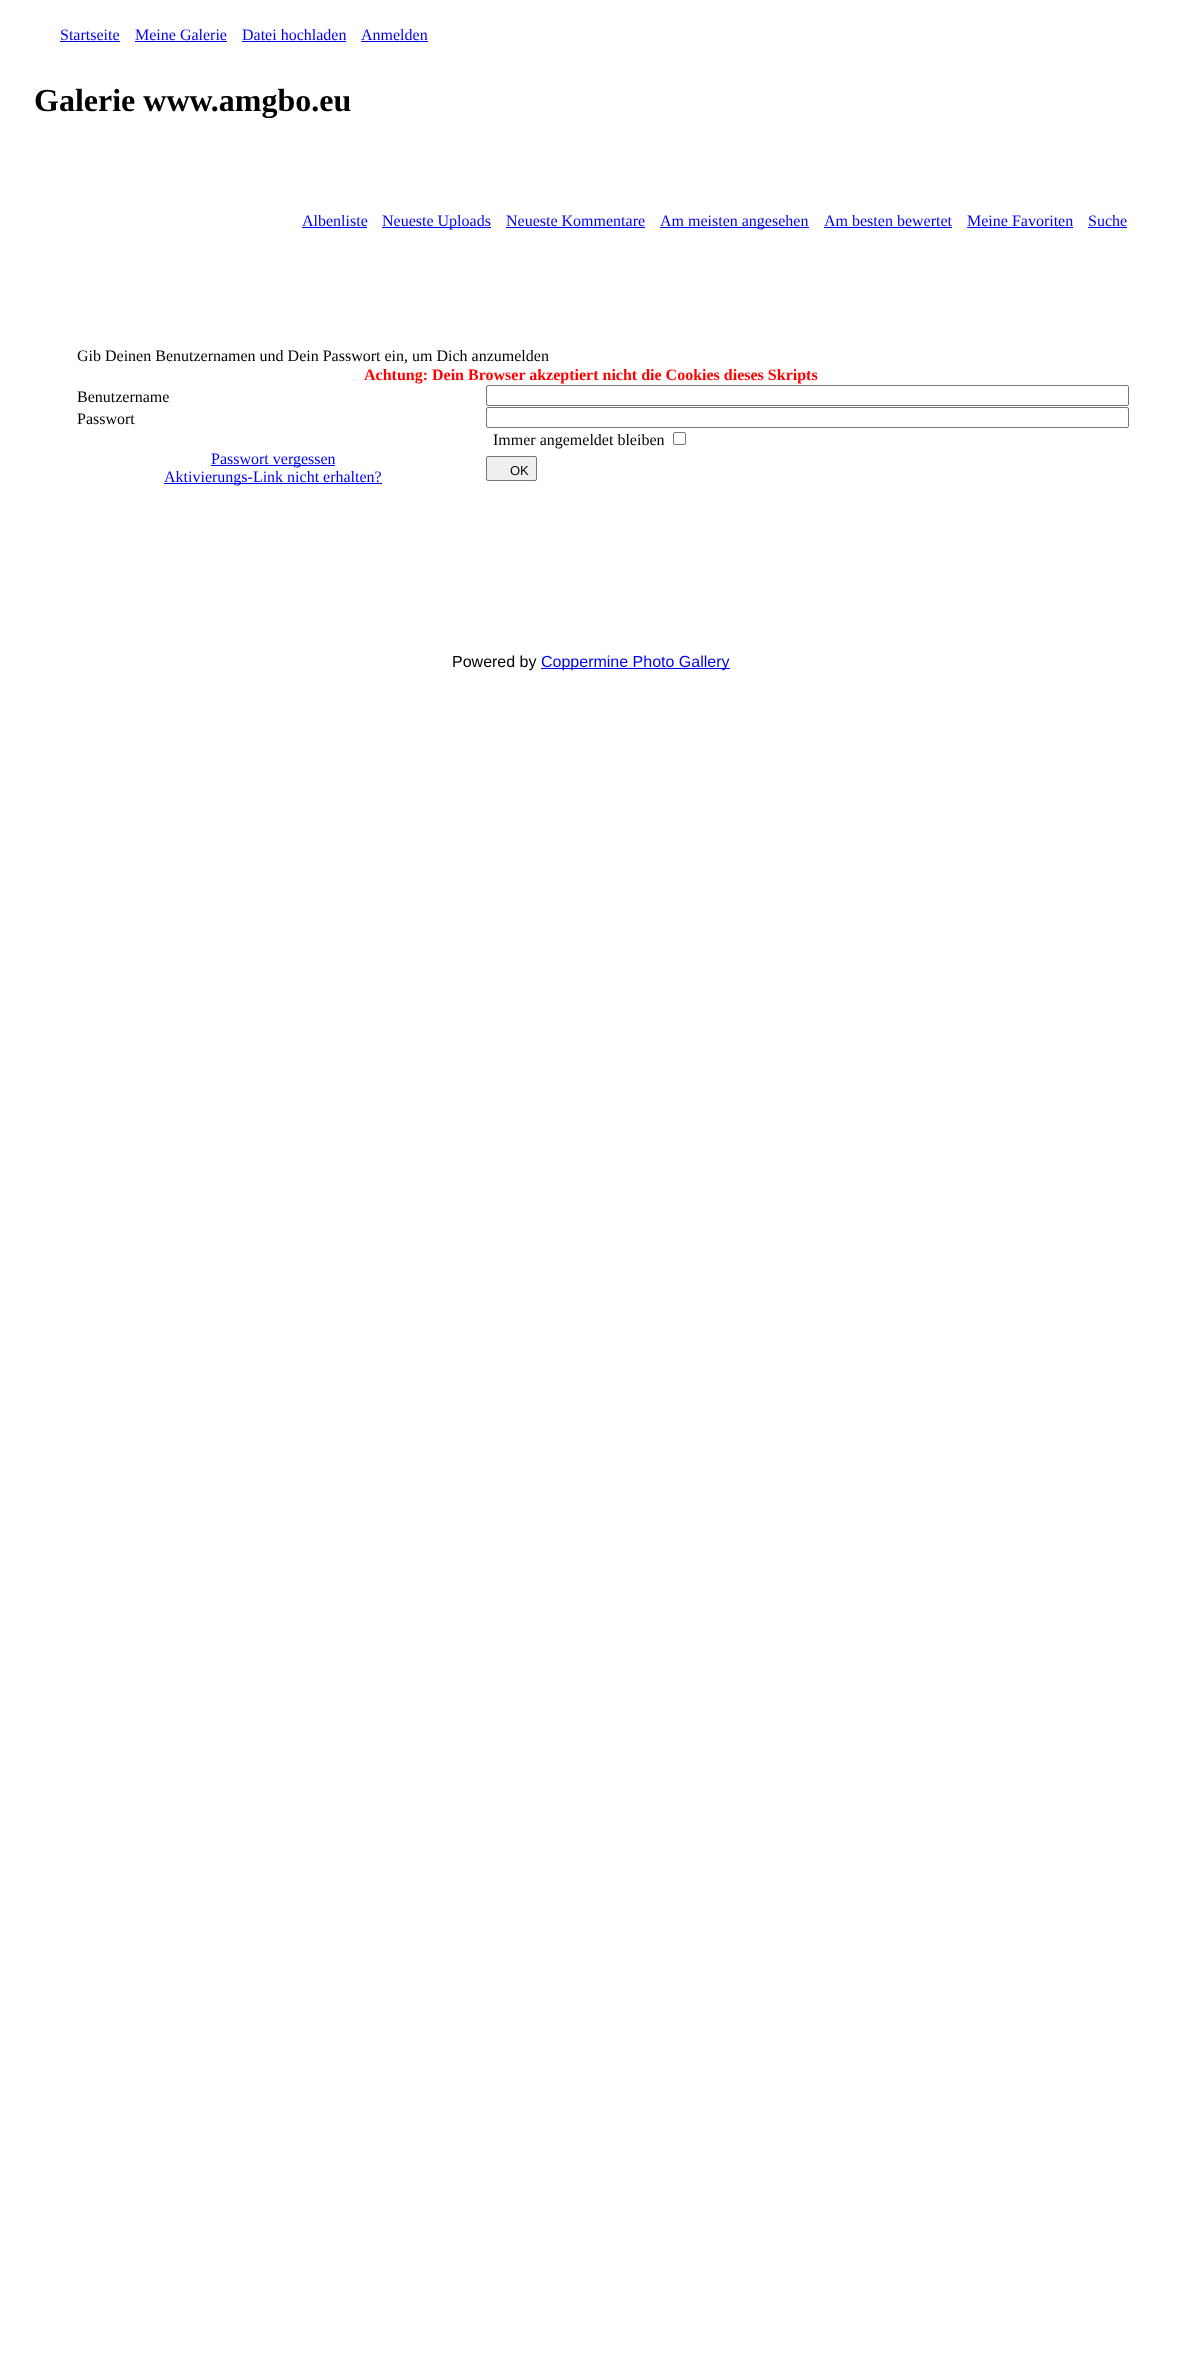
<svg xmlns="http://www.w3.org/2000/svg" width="1182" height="2355">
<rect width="100%" height="100%" fill="#fff"/>
<text x="60" y="40" style="font-family:Liberation Serif;font-size:16px;fill:#00e">Startseite</text>
<rect x="60" y="41" width="60" height="1" fill="#00e"/>
<text x="135" y="40" style="font-family:Liberation Serif;font-size:16px;fill:#00e">Meine Galerie</text>
<rect x="135" y="41" width="92" height="1" fill="#00e"/>
<text x="242" y="40" style="font-family:Liberation Serif;font-size:16px;fill:#00e">Datei hochladen</text>
<rect x="242" y="41" width="104" height="1" fill="#00e"/>
<text x="361" y="40" style="font-family:Liberation Serif;font-size:16px;fill:#00e">Anmelden</text>
<rect x="361" y="41" width="67" height="1" fill="#00e"/>
<text x="34" y="111" style="font-family:Liberation Serif;font-size:32px;font-weight:bold;fill:#000">Galerie www.amgbo.eu</text>
<text x="302" y="226" style="font-family:Liberation Serif;font-size:16px;fill:#00e">Albenliste</text>
<rect x="302" y="227" width="65" height="1" fill="#00e"/>
<rect x="382" y="227" width="109" height="1" fill="#00e"/>
<text x="382" y="226" style="font-family:Liberation Serif;font-size:16px;fill:#00e">Neueste Uploads</text>
<text x="506" y="226" style="font-family:Liberation Serif;font-size:16px;fill:#00e">Neueste Kommentare</text>
<rect x="506" y="227" width="139" height="1" fill="#00e"/>
<rect x="660" y="227" width="149" height="1" fill="#00e"/>
<text x="660" y="226" style="font-family:Liberation Serif;font-size:16px;fill:#00e">Am meisten angesehen</text>
<text x="824" y="226" style="font-family:Liberation Serif;font-size:16px;fill:#00e">Am besten bewertet</text>
<rect x="824" y="227" width="128" height="1" fill="#00e"/>
<text x="967" y="226" style="font-family:Liberation Serif;font-size:16px;fill:#00e">Meine Favoriten</text>
<rect x="967" y="227" width="106" height="1" fill="#00e"/>
<text x="1088" y="226" style="font-family:Liberation Serif;font-size:16px;fill:#00e">Suche</text>
<rect x="1088" y="227" width="39" height="1" fill="#00e"/>
<text x="77" y="361" style="font-family:Liberation Serif;font-size:16px;fill:#000">Gib Deinen Benutzernamen und Dein Passwort ein, um Dich anzumelden</text>
<text x="364" y="380" style="font-family:Liberation Serif;font-size:16px;font-weight:bold;fill:#f00">Achtung: Dein Browser akzeptiert nicht die Cookies dieses Skripts</text>
<text x="77" y="402" style="font-family:Liberation Serif;font-size:16px;fill:#000">Benutzername</text>
<rect x="486.5" y="385.5" width="642" height="20" rx="1.5" fill="none" stroke="#767676"/>
<text x="77" y="424" style="font-family:Liberation Serif;font-size:16px;fill:#000">Passwort</text>
<rect x="486.5" y="407.5" width="642" height="20" rx="1.5" fill="none" stroke="#767676"/>
<text x="493" y="445" style="font-family:Liberation Serif;font-size:16px;fill:#000">Immer angemeldet bleiben</text>
<rect x="673.5" y="432.5" width="12" height="12" rx="1.5" fill="none" stroke="#767676"/>
<rect x="211" y="465" width="124" height="1" fill="#00e"/>
<text x="211" y="464" style="font-family:Liberation Serif;font-size:16px;fill:#00e">Passwort vergessen</text>
<rect x="164" y="483" width="218" height="1" fill="#00e"/>
<text x="164" y="482" style="font-family:Liberation Serif;font-size:16px;fill:#00e">Aktivierungs-Link nicht erhalten?</text>
<rect x="486.5" y="456.5" width="50" height="24" rx="1.5" fill="#efefef" stroke="#767676"/>
<text x="510" y="475" style="font-family:Liberation Sans;font-size:13px;fill:#000">OK</text>
<text x="452" y="667" style="font-family:Liberation Sans;font-size:16px;fill:#000">Powered by</text>
<rect x="541" y="668" width="189" height="1" fill="#00e"/>
<text x="541" y="667" style="font-family:Liberation Sans;font-size:16px;fill:#00e">Coppermine Photo Gallery</text>
</svg>
